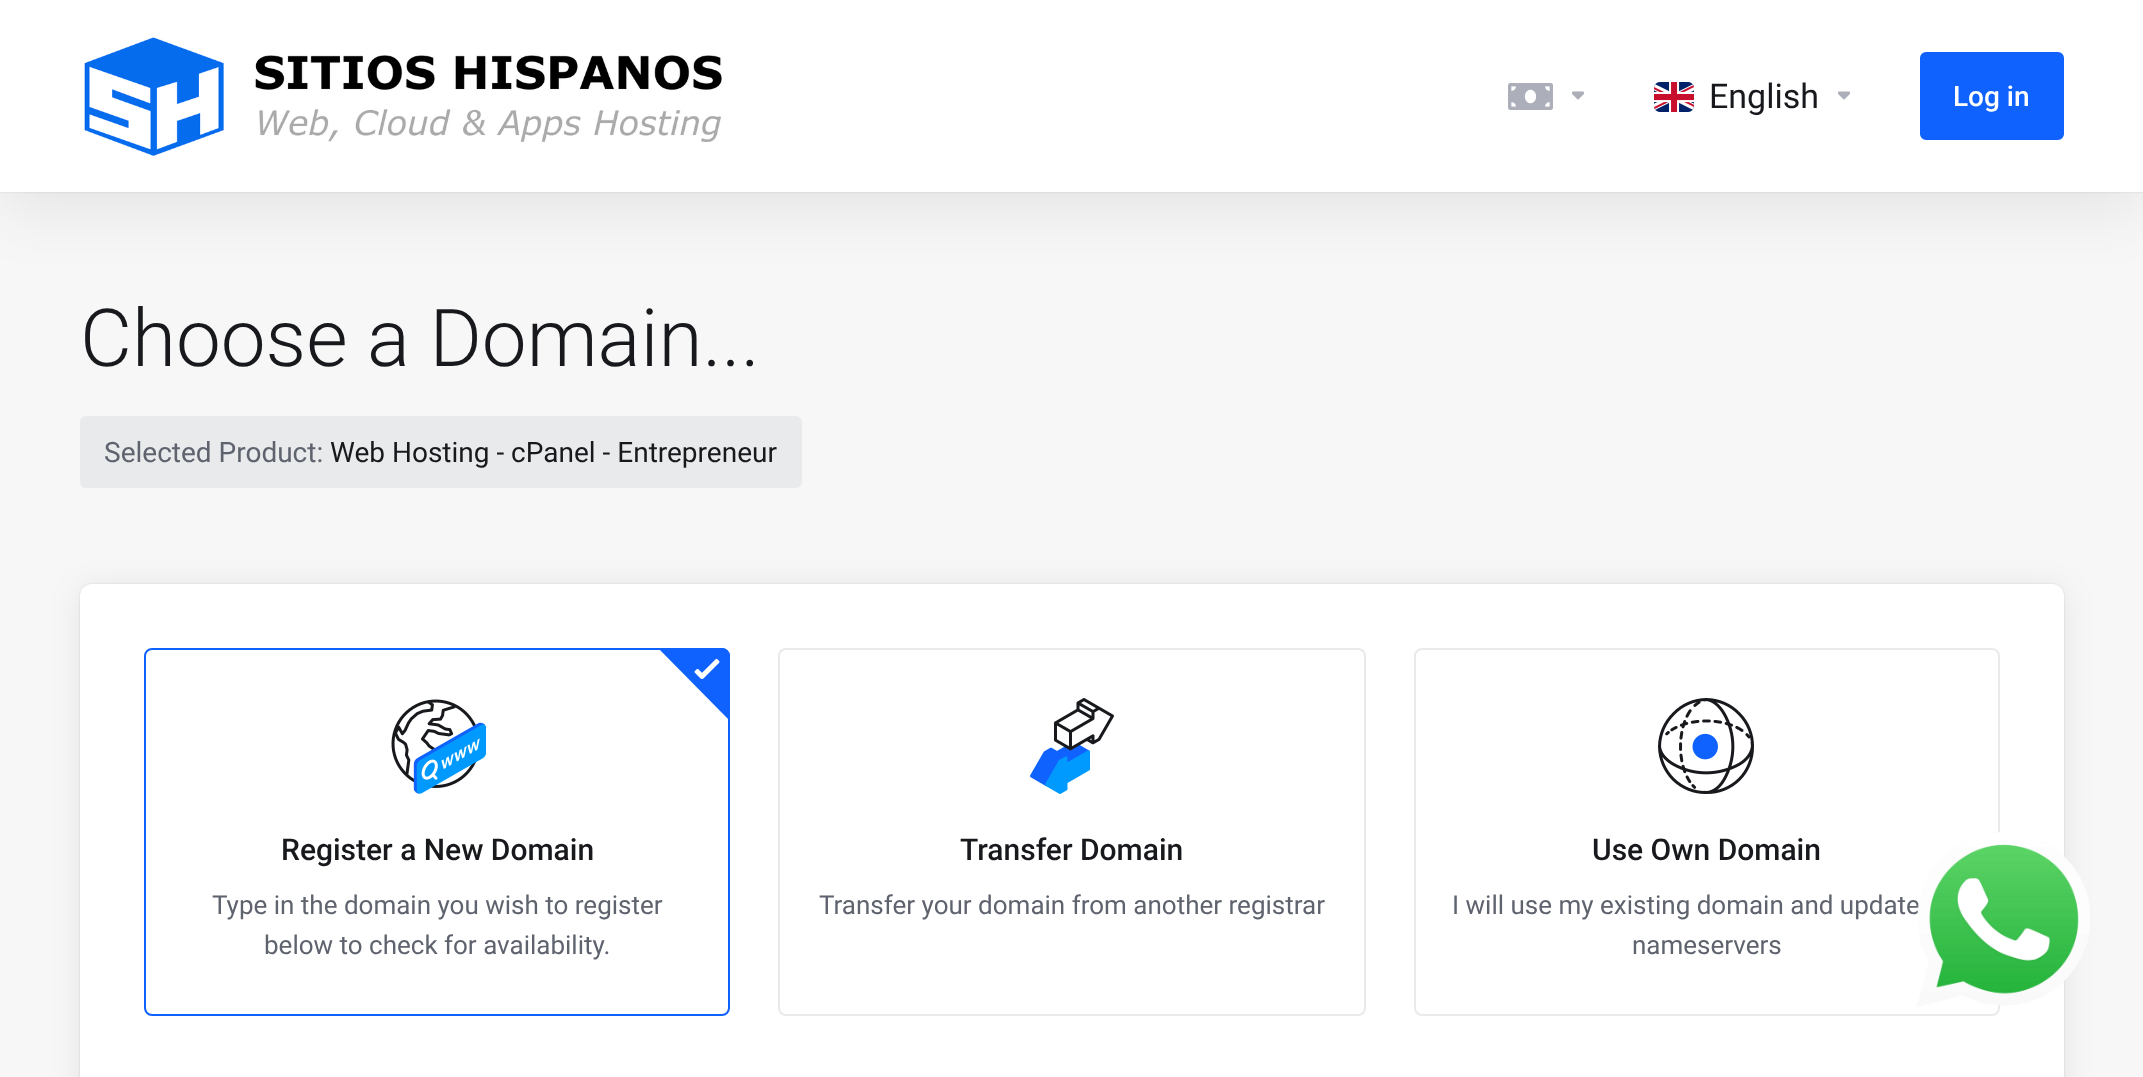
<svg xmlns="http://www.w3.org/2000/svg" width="2143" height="1077">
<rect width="100%" height="100%" fill="#f7f7f8"/>
<rect y="16" width="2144" height="192" fill="#00000014" filter="blur(32px)"/>
<rect width="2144" height="192" fill="#0000001f" filter="blur(1px)"/>
<rect width="2143" height="192" fill="#fff"/>
<image x="84" y="37" width="638" height="119" href="media/1.png"/>
<image x="1508" y="83" width="45" height="27" href="media/2.png"/>
<image x="1572" y="91" width="12" height="9" href="media/3.png"/>
<image x="1654" y="82" width="40" height="30" href="media/4.png"/>
<text x="1709" y="108" style="font-family:Roboto;font-size:34px;fill:#17191c">English</text>
<image x="1838" y="91" width="12" height="9" href="media/3.png"/>
<rect x="1921" y="53" width="142" height="86" rx="5" fill="#1062fe" stroke="#1062fe" stroke-width="2"/>
<text x="1953" y="106" style="font-family:Roboto;font-size:28px;font-weight:500;fill:#fff">Log in</text>
<text x="80" y="366" style="font-family:Roboto;font-size:80px;font-weight:300;fill:#17191c">Choose a Domain...</text>
<rect x="80" y="416" width="722" height="72" rx="6" fill="#e9eaec"/>
<text x="104" y="462" style="font-family:Roboto;font-size:28px;fill:#5e636e">Selected Product:</text>
<text x="330" y="462" style="font-family:Roboto;font-size:28px;fill:#17191c">Web Hosting - cPanel - Entrepreneur</text>
<rect x="80" y="588" width="1984" height="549" rx="12" fill="#00000014" filter="blur(16px)"/>
<rect x="80" y="584" width="1984" height="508" rx="12" fill="#0000001a" filter="blur(1px)"/>
<rect x="80" y="584" width="1984" height="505" rx="12" fill="#fff"/>
<rect x="145" y="649" width="584" height="366" rx="7" fill="none" stroke="#1062fe" stroke-width="2"/>
<path d="M730 721v-65c0-4-4-8-8-8h-64z" fill="#1062fe"/>
<image x="694" y="658" width="26" height="21" href="media/5.png"/>
<image x="391" y="699" width="95" height="95" href="media/6.png"/>
<text x="281" y="860" style="font-family:Roboto;font-size:30px;font-weight:500;fill:#17191c">Register a New Domain</text>
<text x="212" y="914" style="font-family:Roboto;font-size:26px;fill:#5e636e">Type in the domain you wish to register</text>
<text x="264" y="954" style="font-family:Roboto;font-size:26px;fill:#5e636e">below to check for availability.</text>
<rect x="779" y="649" width="586" height="366" rx="7" fill="none" stroke="#e9eaec" stroke-width="2"/>
<image x="1030" y="698" width="84" height="96" href="media/7.png"/>
<text x="960" y="860" style="font-family:Roboto;font-size:30px;font-weight:500;fill:#17191c">Transfer Domain</text>
<text x="819" y="914" style="font-family:Roboto;font-size:26px;fill:#5e636e">Transfer your domain from another registrar</text>
<rect x="1415" y="649" width="584" height="366" rx="7" fill="none" stroke="#e9eaec" stroke-width="2"/>
<image x="1658" y="698" width="96" height="96" href="media/8.png"/>
<text x="1592" y="860" style="font-family:Roboto;font-size:30px;font-weight:500;fill:#17191c">Use Own Domain</text>
<text x="1452" y="914" style="font-family:Roboto;font-size:26px;fill:#5e636e">I will use my existing domain and update</text>
<text x="1632" y="954" style="font-family:Roboto;font-size:26px;fill:#5e636e">nameservers</text>
<image x="1914" y="831" width="176" height="176" href="media/9.png"/>
</svg>
